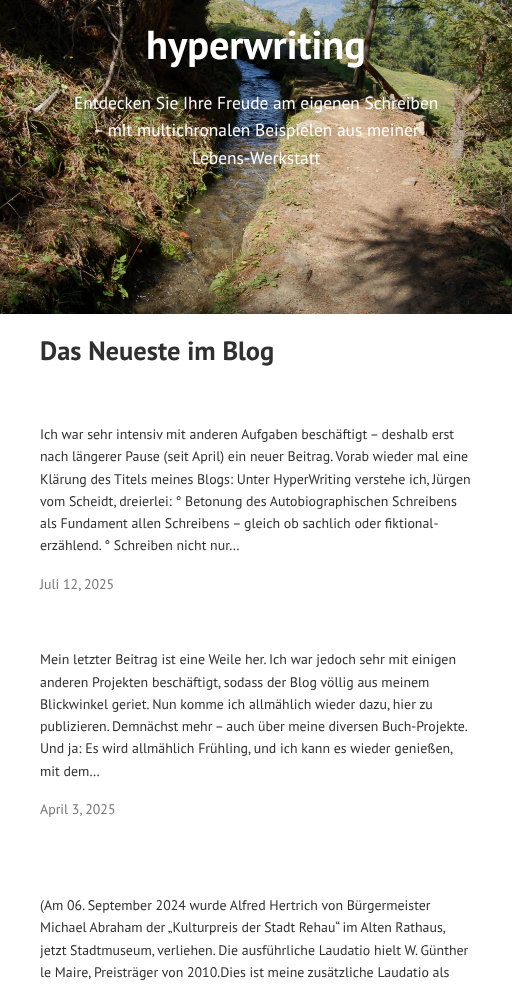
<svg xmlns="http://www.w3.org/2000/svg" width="512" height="995">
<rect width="100%" height="100%" fill="#fff"/>
<image x="0" y="0" width="512" height="314" href="media/1.png"/>
<text x="146" y="59" style="font-family:PT Sans;font-size:40.25px;font-weight:bold;fill:#fff">hyperwriting</text>
<text x="74" y="109" style="font-family:PT Sans;font-size:17.4px;fill:#fff">Entdecken Sie Ihre Freude am eigenen Schreiben</text>
<text x="93" y="136" style="font-family:PT Sans;font-size:17.4px;fill:#fff">– mit multichronalen Beispielen aus meiner</text>
<text x="192" y="164" style="font-family:PT Sans;font-size:17.4px;fill:#fff">Lebens-Werkstatt</text>
<text x="40" y="360" style="font-family:PT Sans;font-size:26.5px;font-weight:bold;fill:#303030">Das Neueste im Blog</text>
<text x="40" y="439" style="font-family:PT Sans;font-size:13.9px;fill:#303030">Ich war sehr intensiv mit anderen Aufgaben beschäftigt – deshalb erst</text>
<text x="40" y="461" style="font-family:PT Sans;font-size:13.9px;fill:#303030">nach längerer Pause (seit April) ein neuer Beitrag. Vorab wieder mal eine</text>
<text x="40" y="484" style="font-family:PT Sans;font-size:13.9px;fill:#303030">Klärung des Titels meines Blogs: Unter HyperWriting verstehe ich, Jürgen</text>
<text x="40" y="506" style="font-family:PT Sans;font-size:13.9px;fill:#303030">vom Scheidt, dreierlei: ° Betonung des Autobiographischen Schreibens</text>
<text x="40" y="528" style="font-family:PT Sans;font-size:13.9px;fill:#303030">als Fundament allen Schreibens – gleich ob sachlich oder fiktional-</text>
<text x="40" y="550" style="font-family:PT Sans;font-size:13.9px;fill:#303030">erzählend. ° Schreiben nicht nur…</text>
<text x="40" y="589" style="font-family:PT Sans;font-size:13.9px;fill:#757575">Juli 12, 2025</text>
<text x="40" y="664" style="font-family:PT Sans;font-size:13.9px;fill:#303030">Mein letzter Beitrag ist eine Weile her. Ich war jedoch sehr mit einigen</text>
<text x="40" y="687" style="font-family:PT Sans;font-size:13.9px;fill:#303030">anderen Projekten beschäftigt, sodass der Blog völlig aus meinem</text>
<text x="40" y="709" style="font-family:PT Sans;font-size:13.9px;fill:#303030">Blickwinkel geriet. Nun komme ich allmählich wieder dazu, hier zu</text>
<text x="40" y="731" word-spacing="-0.25" style="font-family:PT Sans;font-size:13.9px;fill:#303030">publizieren. Demnächst mehr – auch über meine diversen Buch-Projekte.</text>
<text x="40" y="753" style="font-family:PT Sans;font-size:13.9px;fill:#303030">Und ja: Es wird allmählich Frühling, und ich kann es wieder genießen,</text>
<text x="40" y="776" style="font-family:PT Sans;font-size:13.9px;fill:#303030">mit dem…</text>
<text x="40" y="814" style="font-family:PT Sans;font-size:13.9px;fill:#757575">April 3, 2025</text>
<text x="40" y="910" style="font-family:PT Sans;font-size:13.9px;fill:#303030">(Am 06. September 2024 wurde Alfred Hertrich von Bürgermeister</text>
<text x="40" y="932" word-spacing="-0.25" style="font-family:PT Sans;font-size:13.9px;fill:#303030">Michael Abraham der „Kulturpreis der Stadt Rehau“ im Alten Rathaus,</text>
<text x="40" y="955" style="font-family:PT Sans;font-size:13.9px;fill:#303030">jetzt Stadtmuseum, verliehen. Die ausführliche Laudatio hielt W. Günther</text>
<text x="40" y="977" style="font-family:PT Sans;font-size:13.9px;fill:#303030">le Maire, Preisträger von 2010.Dies ist meine zusätzliche Laudatio als</text>
</svg>
